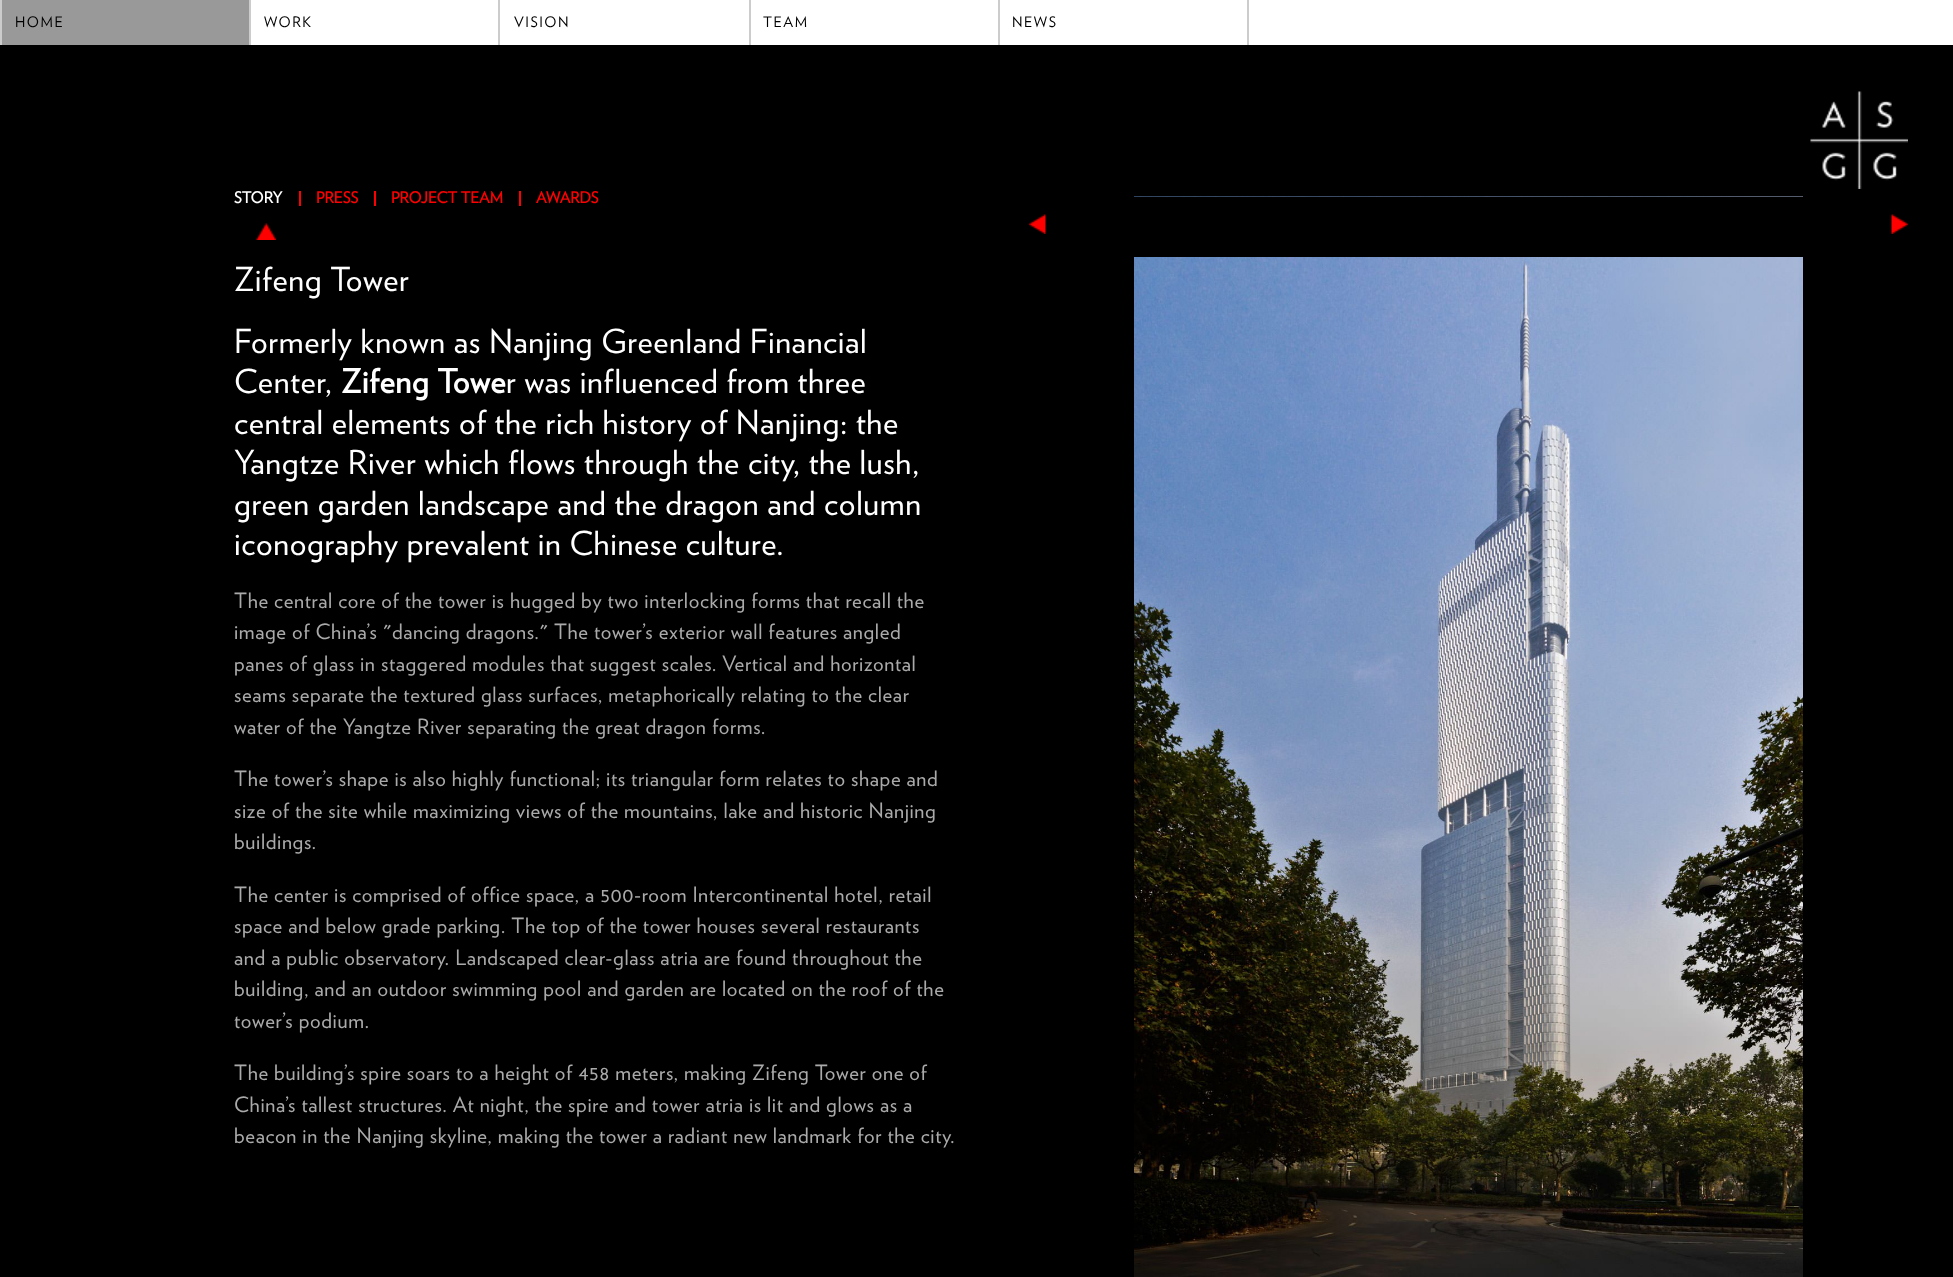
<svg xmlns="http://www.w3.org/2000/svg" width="1953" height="1277">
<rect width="100%" height="100%" fill="#000"/>
<rect x="251" width="1702" height="45" fill="#fff"/>
<rect x="2" width="247" height="45" fill="#999"/>
<rect x="249" width="2" height="45" fill="#ccc"/>
<rect width="2" height="45" fill="#ccc"/>
<text x="15" y="27" style="font-family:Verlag;font-size:14.5px;letter-spacing:1.5px;fill:#000">HOME</text>
<rect x="498" width="2" height="45" fill="#ccc"/>
<text x="264" y="27" style="font-family:Verlag;font-size:14.5px;letter-spacing:1.5px;fill:#000">WORK</text>
<rect x="749" width="2" height="45" fill="#ccc"/>
<text x="514" y="27" style="font-family:Verlag;font-size:14.5px;letter-spacing:1.5px;fill:#000">VISION</text>
<rect x="998" width="2" height="45" fill="#ccc"/>
<text x="763" y="27" style="font-family:Verlag;font-size:14.5px;letter-spacing:1.5px;fill:#000">TEAM</text>
<rect x="1247" width="2" height="45" fill="#ccc"/>
<text x="1012" y="27" style="font-family:Verlag;font-size:14.5px;letter-spacing:1.5px;fill:#000">NEWS</text>
<image x="1810" y="91" width="98" height="98" href="media/1.png"/>
<text x="234" y="203" style="font-family:Verlag;font-size:15.5px;font-weight:bold;fill:#fff">STORY</text>
<image x="256" y="223" width="20" height="17" href="media/2.png"/>
<text x="316" y="203" style="font-family:Verlag;font-size:15.5px;font-weight:bold;fill:#f00">PRESS</text>
<rect x="299" y="191" width="2" height="15" fill="#f00"/>
<text x="391" y="203" style="font-family:Verlag;font-size:15.5px;font-weight:bold;fill:#f00">PROJECT TEAM</text>
<rect x="374" y="191" width="2" height="15" fill="#f00"/>
<text x="536" y="203" style="font-family:Verlag;font-size:15.5px;font-weight:bold;fill:#f00">AWARDS</text>
<rect x="519" y="191" width="2" height="15" fill="#f00"/>
<text x="234" y="291" style="font-family:Verlag;font-size:33px;letter-spacing:0.63px;fill:#fff">Zifeng Tower</text>
<text x="234" y="353" style="font-family:Verlag;font-size:33px;letter-spacing:0.63px;fill:#fff">Formerly known as Nanjing Greenland Financial</text>
<text x="234" y="393" style="font-family:Verlag;font-size:33px;letter-spacing:0.63px;fill:#fff">Center,</text>
<text x="341" y="393" style="font-family:Verlag;font-size:33px;font-weight:bold;letter-spacing:0.63px;fill:#fff">Zifeng Towe</text>
<text x="506" y="393" style="font-family:Verlag;font-size:33px;letter-spacing:0.63px;fill:#fff">r was influenced from three</text>
<text x="234" y="434" style="font-family:Verlag;font-size:33px;letter-spacing:0.63px;fill:#fff">central elements of the rich history of Nanjing: the</text>
<text x="234" y="474" style="font-family:Verlag;font-size:33px;letter-spacing:0.63px;fill:#fff">Yangtze River which flows through the city, the lush,</text>
<text x="234" y="515" style="font-family:Verlag;font-size:33px;letter-spacing:0.63px;fill:#fff">green garden landscape and the dragon and column</text>
<text x="234" y="555" style="font-family:Verlag;font-size:33px;letter-spacing:0.63px;fill:#fff">iconography prevalent in Chinese culture.</text>
<text x="234" y="608" style="font-family:Verlag;font-size:21px;letter-spacing:0.63px;fill:#aaa">The central core of the tower is hugged by two interlocking forms that recall the</text>
<text x="234" y="639" style="font-family:Verlag;font-size:21px;letter-spacing:0.63px;fill:#aaa">image of China’s "dancing dragons." The tower’s exterior wall features angled</text>
<text x="234" y="671" style="font-family:Verlag;font-size:21px;letter-spacing:0.63px;fill:#aaa">panes of glass in staggered modules that suggest scales. Vertical and horizontal</text>
<text x="234" y="702" style="font-family:Verlag;font-size:21px;letter-spacing:0.63px;fill:#aaa">seams separate the textured glass surfaces, metaphorically relating to the clear</text>
<text x="234" y="734" style="font-family:Verlag;font-size:21px;letter-spacing:0.63px;fill:#aaa">water of the Yangtze River separating the great dragon forms.</text>
<text x="234" y="786" style="font-family:Verlag;font-size:21px;letter-spacing:0.63px;fill:#aaa">The tower’s shape is also highly functional; its triangular form relates to shape and</text>
<text x="234" y="818" style="font-family:Verlag;font-size:21px;letter-spacing:0.63px;fill:#aaa">size of the site while maximizing views of the mountains, lake and historic Nanjing</text>
<text x="234" y="849" style="font-family:Verlag;font-size:21px;letter-spacing:0.63px;fill:#aaa">buildings.</text>
<text x="234" y="902" style="font-family:Verlag;font-size:21px;letter-spacing:0.63px;fill:#aaa">The center is comprised of office space, a 500-room Intercontinental hotel, retail</text>
<text x="234" y="933" style="font-family:Verlag;font-size:21px;letter-spacing:0.63px;fill:#aaa">space and below grade parking. The top of the tower houses several restaurants</text>
<text x="234" y="965" style="font-family:Verlag;font-size:21px;letter-spacing:0.63px;fill:#aaa">and a public observatory. Landscaped clear-glass atria are found throughout the</text>
<text x="234" y="996" style="font-family:Verlag;font-size:21px;letter-spacing:0.63px;fill:#aaa">building, and an outdoor swimming pool and garden are located on the roof of the</text>
<text x="234" y="1028" style="font-family:Verlag;font-size:21px;letter-spacing:0.63px;fill:#aaa">tower’s podium.</text>
<text x="234" y="1080" style="font-family:Verlag;font-size:21px;letter-spacing:0.63px;fill:#aaa">The building’s spire soars to a height of 458 meters, making Zifeng Tower one of</text>
<text x="234" y="1112" style="font-family:Verlag;font-size:21px;letter-spacing:0.63px;fill:#aaa">China’s tallest structures. At night, the spire and tower atria is lit and glows as a</text>
<text x="234" y="1143" style="font-family:Verlag;font-size:21px;letter-spacing:0.63px;fill:#aaa">beacon in the Nanjing skyline, making the tower a radiant new landmark for the city.</text>
<image x="1134" y="196" width="669" height="1081" href="media/3.png"/>
<rect x="1134" y="197" width="669" height="60" fill="#000"/>
<image x="1029" y="214" width="17" height="20" href="media/4.png"/>
<image x="1891" y="214" width="17" height="20" href="media/5.png"/>
</svg>
